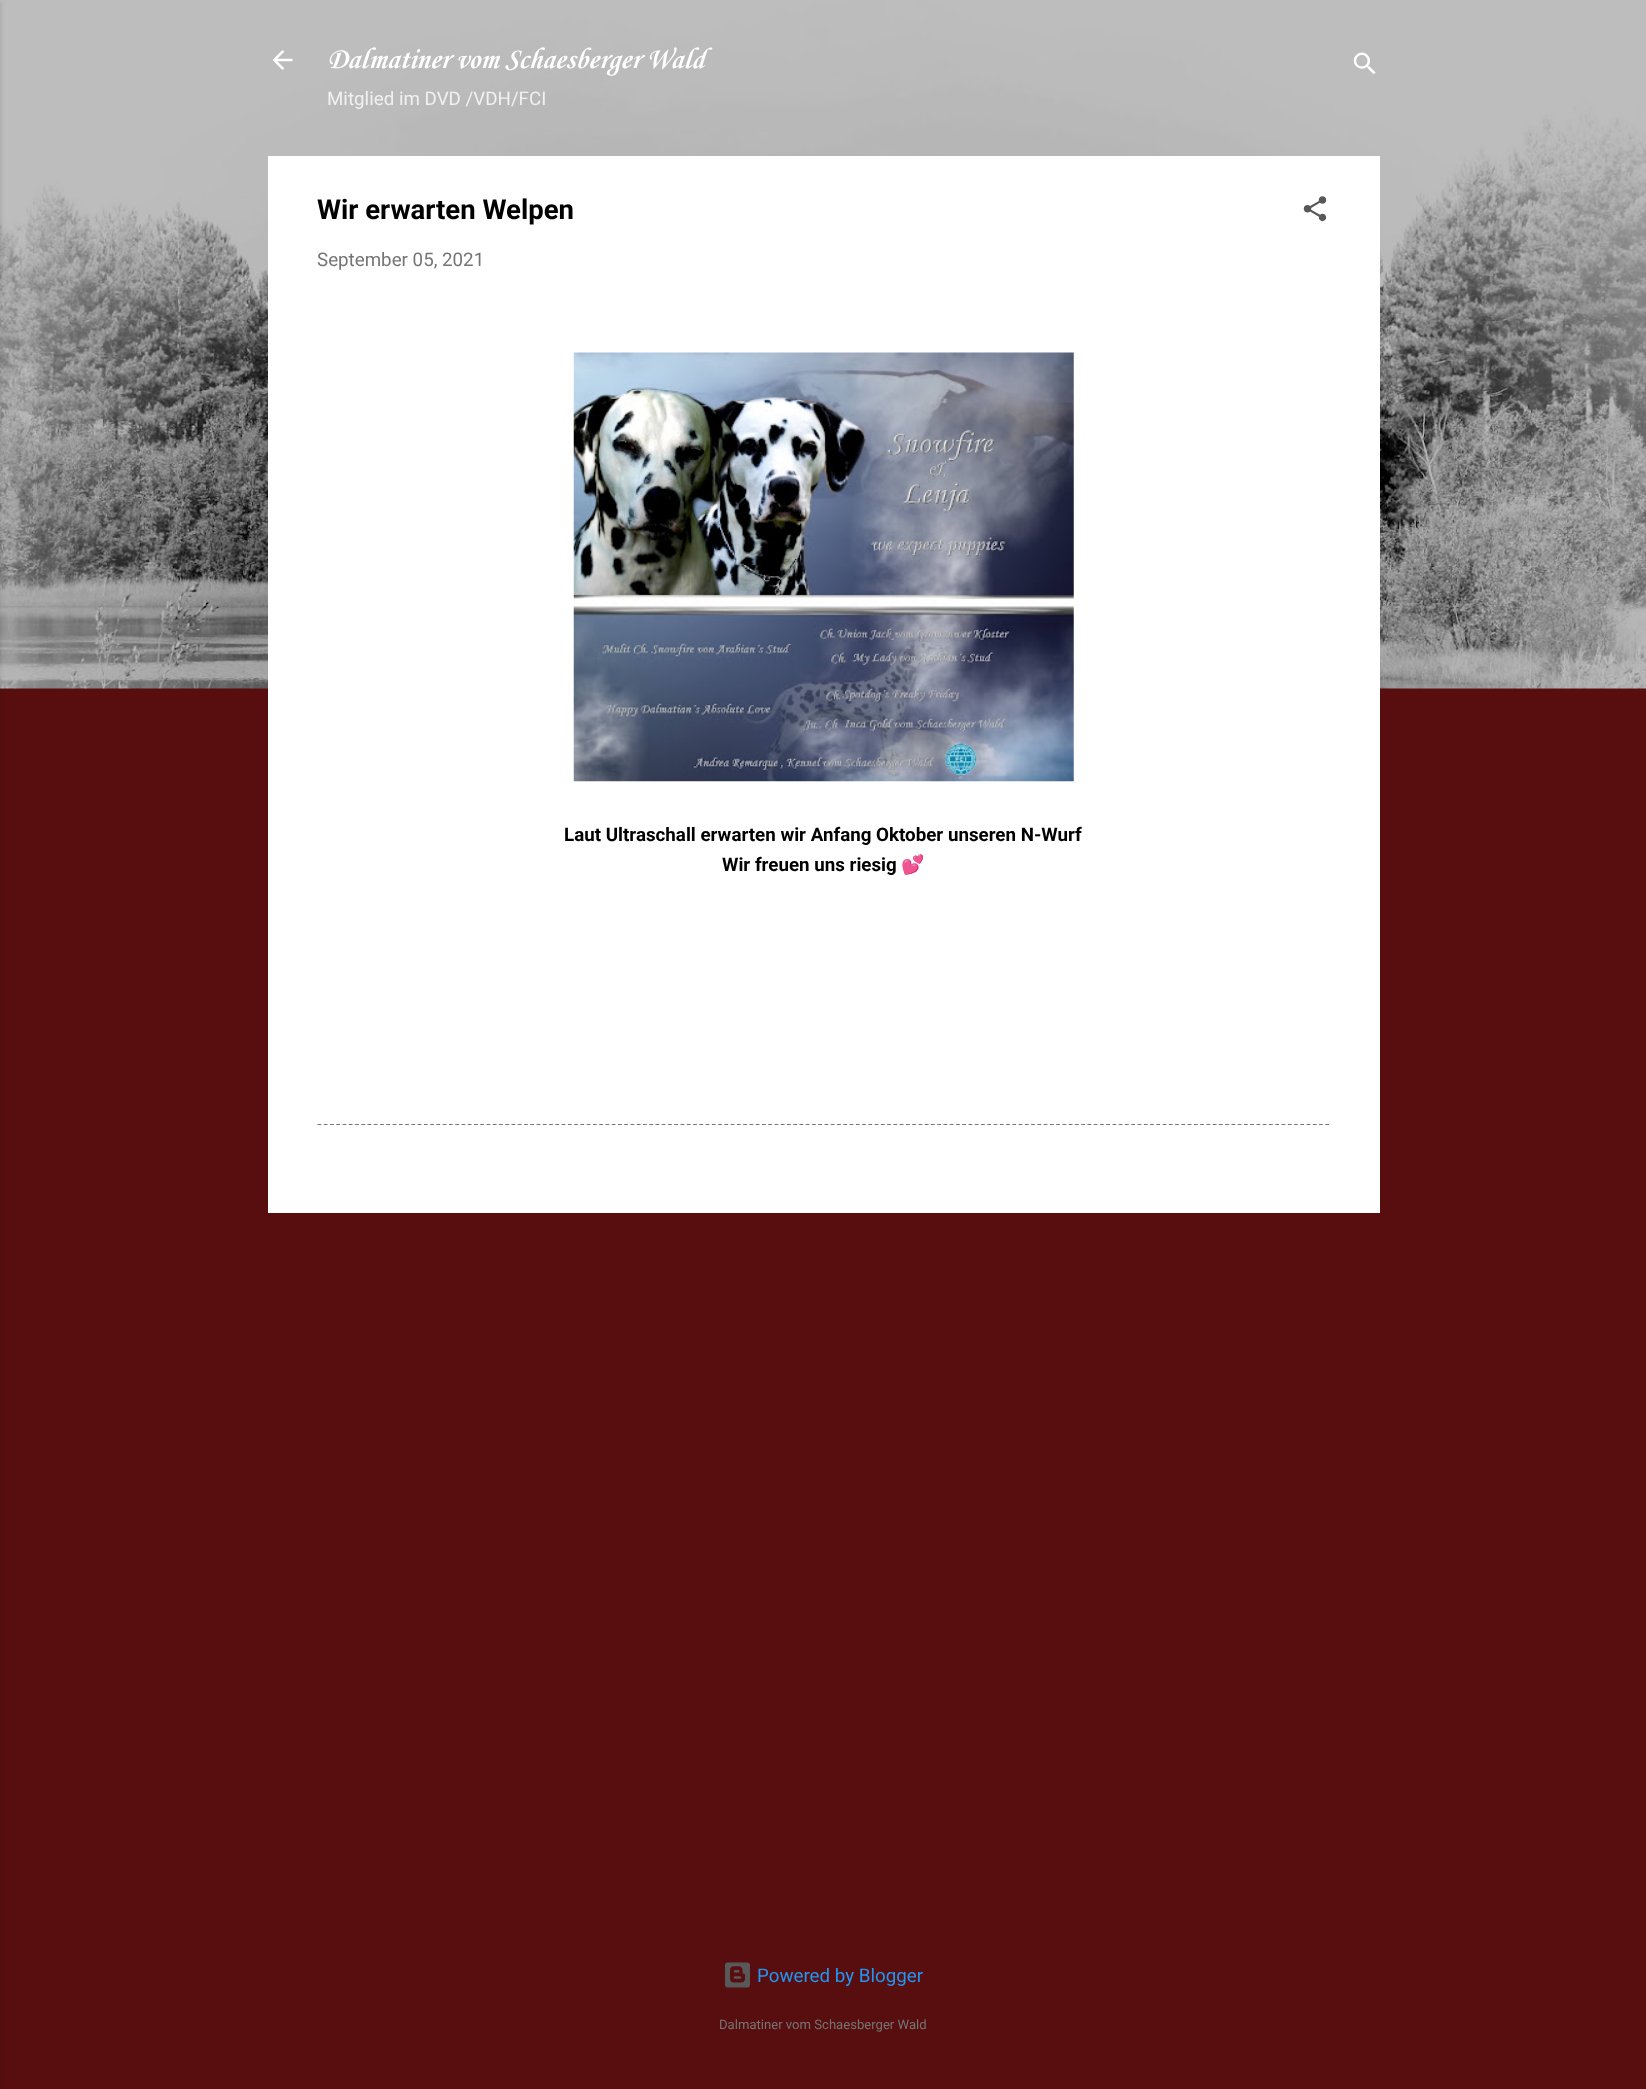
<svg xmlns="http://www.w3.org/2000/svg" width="1646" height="2089">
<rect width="100%" height="100%" fill="#580e0e"/>
<rect y="688" width="1646" height="1" fill="#510202"/>
<image x="0" y="0" width="1646" height="689" href="media/1.png"/>
<rect x="-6" y="1" width="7" height="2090" fill="#0000001a" filter="blur(2px)"/>
<image x="272" y="50" width="21" height="20" href="media/2.png"/>
<text x="327" y="68" style="font-family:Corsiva;font-size:30px;font-weight:bold;font-style:italic;fill:#fff">Dalmatiner vom Schaesberger Wald</text>
<text x="327" y="105" style="font-family:Roboto;font-size:18.75px;fill:#f1f1f1">Mitglied im DVD /VDH/FCI</text>
<image x="1353" y="52" width="23" height="23" href="media/3.png"/>
<rect x="268" y="156" width="1112" height="1057" fill="#fff"/>
<text x="317" y="219" style="font-family:Roboto;font-size:27.5px;font-weight:bold;fill:#000">Wir erwarten Welpen</text>
<image x="1303" y="196" width="24" height="26" href="media/4.png"/>
<text x="317" y="266" style="font-family:Roboto;font-size:18.75px;fill:#757575">September 05, 2021</text>
<image x="573" y="352" width="501" height="430" href="media/5.png"/>
<text x="564" y="841" style="font-family:Roboto;font-size:18.75px;font-weight:bold;fill:#000">Laut Ultraschall erwarten wir Anfang Oktober unseren N-Wurf</text>
<text x="722" y="871" style="font-family:Roboto;font-size:18.75px;font-weight:bold;fill:#000">Wir freuen uns riesig</text>
<text x="901" y="871" style="font-family:Noto Color Emoji;font-size:18.75px;font-weight:bold;fill:#000">💕</text>
<path d="M317.5 1124.5h1012.5" fill="none" stroke="#757575" stroke-width="1.2" stroke-dasharray="3.75 2.51"/>
<image x="725" y="1962" width="25" height="26" href="media/6.png"/>
<text x="757" y="1982" style="font-family:Roboto;font-size:18.75px;fill:#2196f3">Powered by Blogger</text>
<text x="719" y="2029" style="font-family:Roboto;font-size:13.1px;fill:#757575">Dalmatiner vom Schaesberger Wald</text>
</svg>
